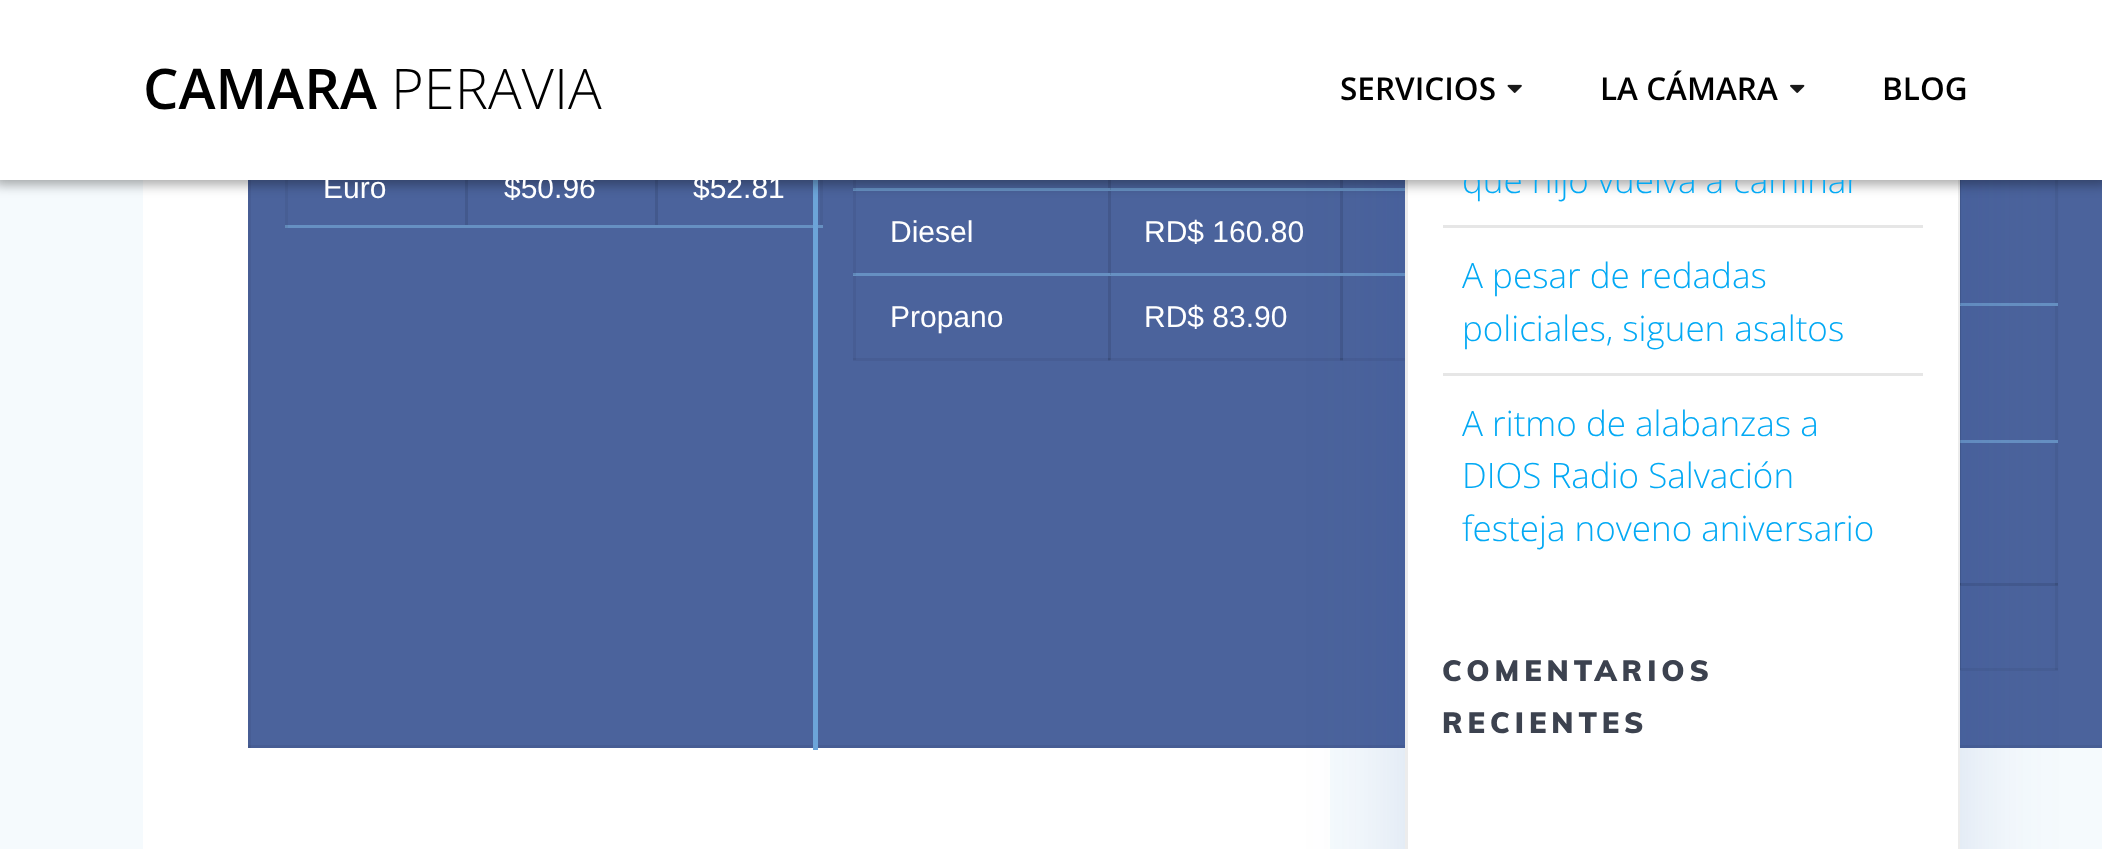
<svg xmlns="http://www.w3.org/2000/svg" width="2102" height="849">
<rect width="100%" height="100%" fill="#f5fafd"/>
<rect x="143" y="180" width="1187" height="669" fill="#fff"/>
<rect x="248" y="180" width="1854" height="568" fill="#4b639c"/>
<rect x="1960" y="180" width="1" height="490" fill="#43598d"/>
<rect x="2055" y="180" width="3" height="405" fill="#475e94"/>
<rect x="285" y="180" width="3" height="48" fill="#475e94"/>
<rect x="465" y="180" width="3" height="48" fill="#43598d"/>
<rect x="655" y="180" width="3" height="48" fill="#43598d"/>
<rect x="820" y="180" width="3" height="48" fill="#475e94"/>
<rect x="815" y="745" width="590" height="3" fill="#0000000d"/>
<rect x="248" y="745" width="570" height="3" fill="#0000000d"/>
<rect x="248" y="180" width="3" height="568" fill="#0000000d"/>
<rect x="285" y="225" width="538" height="3" fill="#6690c2"/>
<rect x="813" y="180" width="5" height="570" fill="#6ca4d9"/>
<rect x="1340" y="358" width="65" height="3" fill="#0000000d"/>
<rect x="1340" y="273" width="3" height="87" fill="#0000000d"/>
<rect x="1340" y="273" width="3" height="87" fill="#0000000d"/>
<rect x="1340" y="273" width="65" height="3" fill="#6690c2"/>
<rect x="1340" y="188" width="3" height="87" fill="#0000000d"/>
<rect x="1340" y="188" width="3" height="87" fill="#0000000d"/>
<rect x="1340" y="188" width="65" height="3" fill="#6690c2"/>
<rect x="1340" y="180" width="3" height="10" fill="#0000000d"/>
<rect x="1340" y="180" width="3" height="10" fill="#0000000d"/>
<rect x="1108" y="358" width="235" height="3" fill="#0000000d"/>
<rect x="1108" y="273" width="3" height="87" fill="#0000000d"/>
<rect x="1108" y="273" width="3" height="87" fill="#0000000d"/>
<rect x="1108" y="273" width="235" height="3" fill="#6690c2"/>
<rect x="1108" y="188" width="3" height="87" fill="#0000000d"/>
<rect x="1108" y="188" width="3" height="87" fill="#0000000d"/>
<rect x="1108" y="188" width="235" height="3" fill="#6690c2"/>
<rect x="1108" y="180" width="3" height="10" fill="#0000000d"/>
<rect x="1108" y="180" width="3" height="10" fill="#0000000d"/>
<rect x="853" y="358" width="257" height="3" fill="#0000000d"/>
<rect x="853" y="273" width="3" height="87" fill="#0000000d"/>
<rect x="853" y="273" width="257" height="3" fill="#6690c2"/>
<rect x="853" y="188" width="3" height="87" fill="#0000000d"/>
<rect x="853" y="188" width="257" height="3" fill="#6690c2"/>
<rect x="853" y="180" width="3" height="10" fill="#0000000d"/>
<rect x="1958" y="668" width="100" height="3" fill="#475e94"/>
<rect x="1958" y="668" width="3" height="2" fill="#405586"/>
<rect x="1958" y="303" width="100" height="3" fill="#6690c2"/>
<rect x="1958" y="303" width="3" height="2" fill="#5c82af"/>
<rect x="1958" y="440" width="100" height="3" fill="#6690c2"/>
<rect x="1958" y="440" width="3" height="3" fill="#5c82af"/>
<rect x="2055" y="583" width="3" height="87" fill="#475e94"/>
<rect x="1958" y="583" width="100" height="3" fill="#43598d"/>
<rect x="1958" y="585" width="3" height="1" fill="#3d517f"/>
<rect x="1958" y="583" width="3" height="2" fill="#374973"/>
<rect x="2055" y="668" width="3" height="2" fill="#43598d"/>
<rect x="1960" y="745" width="142" height="3" fill="#475e94"/>
<rect x="2055" y="585" width="3" height="1" fill="#405586"/>
<rect x="2055" y="583" width="3" height="2" fill="#3d517f"/>
<rect x="1405" y="-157" width="555" height="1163" rx="10" fill="#23459826" filter="blur(49px)"/>
<rect x="1406.5" y="-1.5" width="552" height="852" fill="none" stroke="#ececec" stroke-width="3"/>
<rect x="1408" y="180" width="550" height="669" fill="#fff"/>
<rect x="-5" y="-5" width="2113" height="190" fill="#00000054" filter="blur(6px)"/>
<text x="1462" y="193" style="font-family:Open Sans;font-size:35px;font-weight:300;fill:#03a9f4">que hijo vuelva a caminar</text>
<rect width="2102" height="180" fill="#fff"/>
<text x="143" y="109" style="font-family:Open Sans;font-size:56px;font-weight:600;fill:#000">CAMARA</text>
<text x="391" y="109" style="font-family:Open Sans;font-size:56px;font-weight:300;fill:#000">PERAVIA</text>
<text x="1340" y="100" style="font-family:Open Sans;font-size:31.5px;font-weight:600;fill:#000">SERVICIOS</text>
<image x="1507" y="84" width="15" height="9" href="media/1.png"/>
<text x="1600" y="100" style="font-family:Open Sans;font-size:31.5px;font-weight:600;fill:#000">LA CÁMARA</text>
<image x="1790" y="84" width="15" height="9" href="media/2.png"/>
<text x="1882" y="100" style="font-family:Open Sans;font-size:31.5px;font-weight:600;fill:#000">BLOG</text>
<rect x="285" y="225" width="3" height="3" fill="#6189b8"/>
<text x="323" y="198" style="font-family:Liberation Sans;font-size:30px;fill:#fff">Euro</text>
<text x="504" y="198" style="font-family:Liberation Sans;font-size:30px;fill:#fff">$50.96</text>
<text x="693" y="198" style="font-family:Liberation Sans;font-size:30px;fill:#fff">$52.81</text>
<text x="890" y="242" style="font-family:Liberation Sans;font-size:30px;fill:#fff">Diesel</text>
<text x="1144" y="242" style="font-family:Liberation Sans;font-size:30px;fill:#fff">RD$ 160.80</text>
<text x="890" y="327" style="font-family:Liberation Sans;font-size:30px;fill:#fff">Propano</text>
<text x="1144" y="327" style="font-family:Liberation Sans;font-size:30px;fill:#fff">RD$ 83.90</text>
<rect x="1443" y="225" width="480" height="3" fill="#e6e6e6"/>
<text x="1462" y="288" style="font-family:Open Sans;font-size:35px;font-weight:300;fill:#03a9f4">A pesar de redadas</text>
<text x="1462" y="341" style="font-family:Open Sans;font-size:35px;font-weight:300;fill:#03a9f4">policiales, siguen asaltos</text>
<rect x="1443" y="373" width="480" height="3" fill="#e6e6e6"/>
<text x="1462" y="436" style="font-family:Open Sans;font-size:35px;font-weight:300;fill:#03a9f4">A ritmo de alabanzas a</text>
<text x="1462" y="488" style="font-family:Open Sans;font-size:35px;font-weight:300;fill:#03a9f4">DIOS Radio Salvación</text>
<text x="1462" y="541" style="font-family:Open Sans;font-size:35px;font-weight:300;fill:#03a9f4">festeja noveno aniversario</text>
<text x="1442" y="681" style="font-family:Muli;font-size:29px;font-weight:900;letter-spacing:4.9px;fill:#3c424f">COMENTARIOS</text>
<text x="1442" y="733" style="font-family:Muli;font-size:29px;font-weight:900;letter-spacing:4.9px;fill:#3c424f">RECIENTES</text>
</svg>
